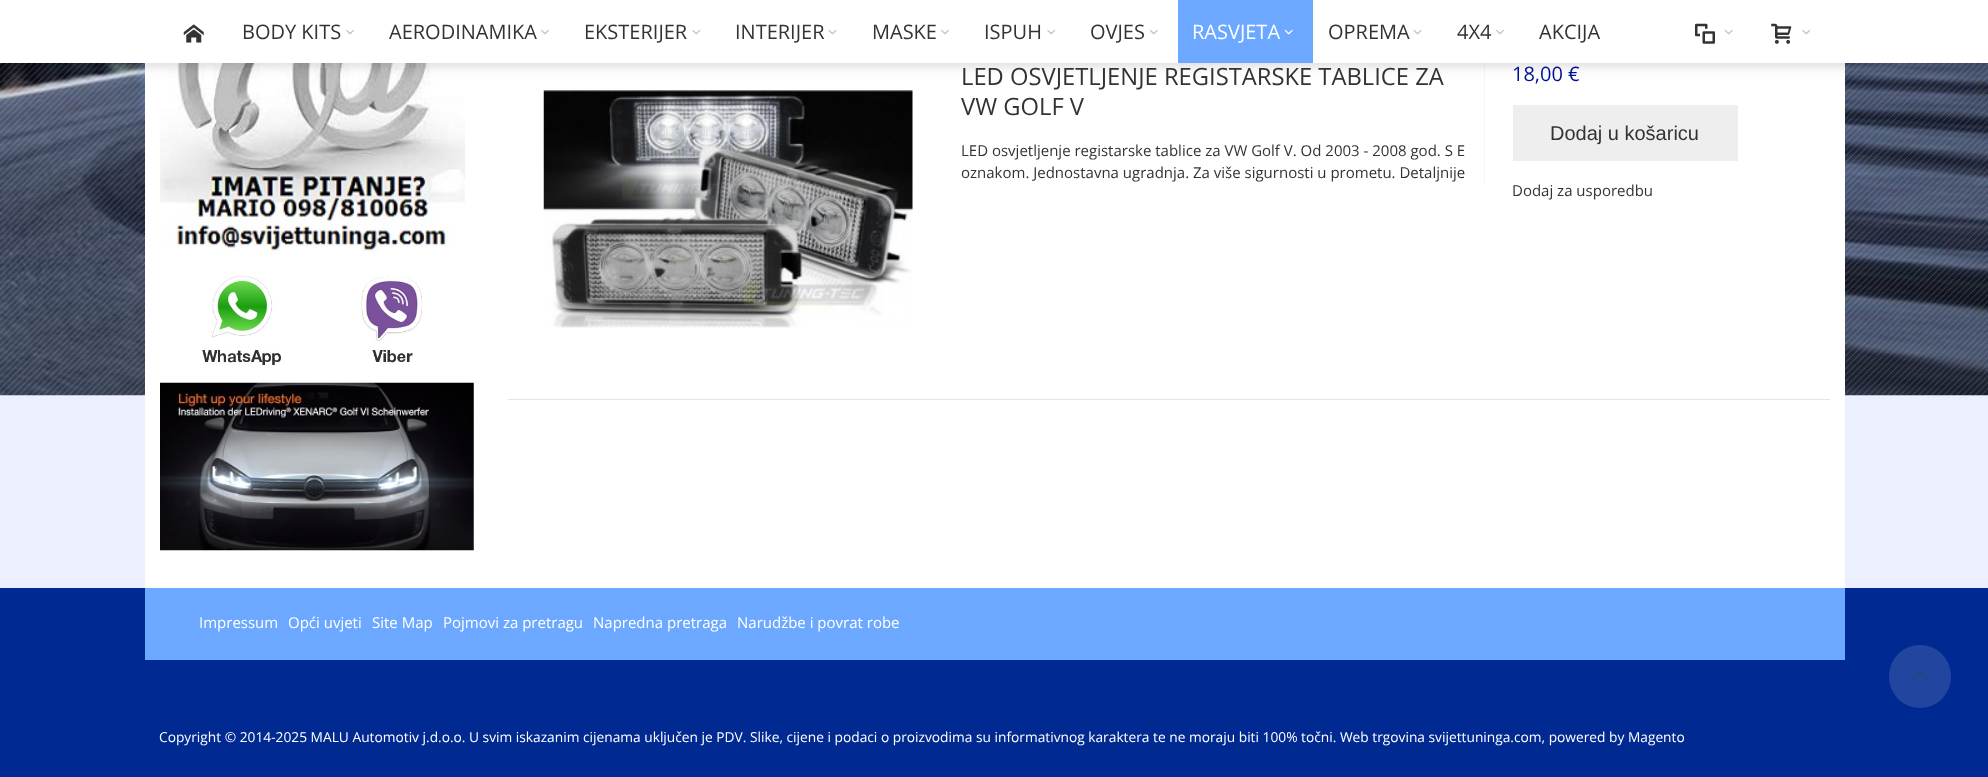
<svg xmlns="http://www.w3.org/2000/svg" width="1988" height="777">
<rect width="100%" height="100%" fill="#ecefff"/>
<image x="0" y="63" width="1988" height="333" href="media/1.png"/>
<image x="0" y="63" width="1988" height="333" href="media/2.png"/>
<rect x="145" y="63" width="1700" height="525" fill="#fff"/>
<image x="160" y="63" width="305" height="191" href="media/11.png"/>
<rect x="1484" y="61" width="1" height="124" fill="#f5f5f5"/>
<rect y="4" width="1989" height="62" fill="#00000026" filter="blur(6px)"/>
<rect width="1988" height="63" fill="#fff"/>
<image x="183" y="24" width="21" height="19" href="media/3.png"/>
<text x="242" y="39" style="font-family:Open Sans;font-size:20px;fill:#333">BODY KITS</text>
<image x="346" y="30" width="8" height="5" href="media/4.png"/>
<text x="389" y="39" style="font-family:Open Sans;font-size:20px;fill:#333">AERODINAMIKA</text>
<image x="541" y="30" width="8" height="5" href="media/4.png"/>
<text x="584" y="39" style="font-family:Open Sans;font-size:20px;fill:#333">EKSTERIJER</text>
<image x="692" y="30" width="9" height="5" href="media/5.png"/>
<text x="735" y="39" style="font-family:Open Sans;font-size:20px;fill:#333">INTERIJER</text>
<image x="828" y="30" width="9" height="5" href="media/6.png"/>
<text x="872" y="39" style="font-family:Open Sans;font-size:20px;fill:#333">MASKE</text>
<image x="941" y="30" width="8" height="5" href="media/4.png"/>
<text x="984" y="39" style="font-family:Open Sans;font-size:20px;fill:#333">ISPUH</text>
<image x="1047" y="30" width="9" height="5" href="media/5.png"/>
<text x="1090" y="39" style="font-family:Open Sans;font-size:20px;fill:#333">OVJES</text>
<image x="1149" y="30" width="9" height="5" href="media/7.png"/>
<rect x="1178" width="135" height="63" fill="#6ca8ff"/>
<text x="1192" y="39" style="font-family:Open Sans;font-size:20px;fill:#fff">RASVJETA</text>
<image x="1284" y="29" width="9" height="6" href="media/8.png"/>
<text x="1328" y="39" style="font-family:Open Sans;font-size:20px;fill:#333">OPREMA</text>
<image x="1413" y="30" width="9" height="5" href="media/6.png"/>
<text x="1457" y="39" style="font-family:Open Sans;font-size:20px;fill:#333">4X4</text>
<image x="1496" y="30" width="8" height="5" href="media/4.png"/>
<text x="1539" y="39" style="font-family:Open Sans;font-size:20px;fill:#333">AKCIJA</text>
<image x="1695" y="23" width="20" height="21" href="media/9.png"/>
<image x="1724" y="30" width="9" height="5" href="media/7.png"/>
<image x="1771" y="23" width="21" height="21" href="media/10.png"/>
<image x="1802" y="30" width="9" height="5" href="media/5.png"/>
<image x="202" y="276" width="220" height="89" href="media/12.png"/>
<image x="160" y="382" width="314" height="169" href="media/13.png"/>
<image x="543" y="90" width="370" height="238" href="media/14.png"/>
<text x="961" y="85" style="font-family:Open Sans;font-size:23.75px;fill:#333">LED OSVJETLJENJE REGISTARSKE TABLICE ZA</text>
<text x="961" y="115" style="font-family:Open Sans;font-size:23.75px;fill:#333">VW GOLF V</text>
<text x="961" y="156" style="font-family:Open Sans;font-size:15px;fill:#333">LED osvjetljenje registarske tablice za VW Golf V. Od 2003 - 2008 god. S E</text>
<text x="961" y="178" style="font-family:Open Sans;font-size:15px;fill:#333">oznakom. Jednostavna ugradnja. Za više sigurnosti u prometu. Detaljnije</text>
<text x="1512" y="81" style="font-family:Open Sans;font-size:20px;fill:#001097">18,00 €</text>
<rect x="1513" y="105" width="225" height="56" fill="#eee"/>
<text x="1550" y="140" style="font-family:Liberation Sans;font-size:20px;fill:#333">Dodaj u košaricu</text>
<text x="1512" y="196" style="font-family:Open Sans;font-size:15px;fill:#333">Dodaj za usporedbu</text>
<rect x="508" y="399" width="1322" height="1" fill="#e5e5e5"/>
<rect y="588" width="1988" height="189" fill="#002a91"/>
<rect x="145" y="588" width="1700" height="72" fill="#6ca8ff"/>
<text x="199" y="628" style="font-family:Open Sans;font-size:15px;fill:#fff">Impressum</text>
<text x="288" y="628" style="font-family:Open Sans;font-size:15px;fill:#fff">Opći uvjeti</text>
<text x="372" y="628" style="font-family:Open Sans;font-size:15px;fill:#fff">Site Map</text>
<text x="443" y="628" style="font-family:Open Sans;font-size:15px;fill:#fff">Pojmovi za pretragu</text>
<text x="593" y="628" style="font-family:Open Sans;font-size:15px;fill:#fff">Napredna pretraga</text>
<text x="737" y="628" style="font-family:Open Sans;font-size:15px;fill:#fff">Narudžbe i povrat robe</text>
<rect x="1889" y="645" width="62" height="63" rx="31" fill="#22469f"/>
<image x="1911" y="670" width="18" height="11" href="media/15.png"/>
<text x="159" y="742" style="font-family:Open Sans;font-size:13.75px;fill:#fff">Copyright © 2014-2025 MALU Automotiv j.d.o.o. U svim iskazanim cijenama uključen je PDV. Slike, cijene i podaci o proizvodima su informativnog karaktera te ne moraju biti 100% točni. Web trgovina svijettuninga.com, powered by Magento</text>
</svg>
